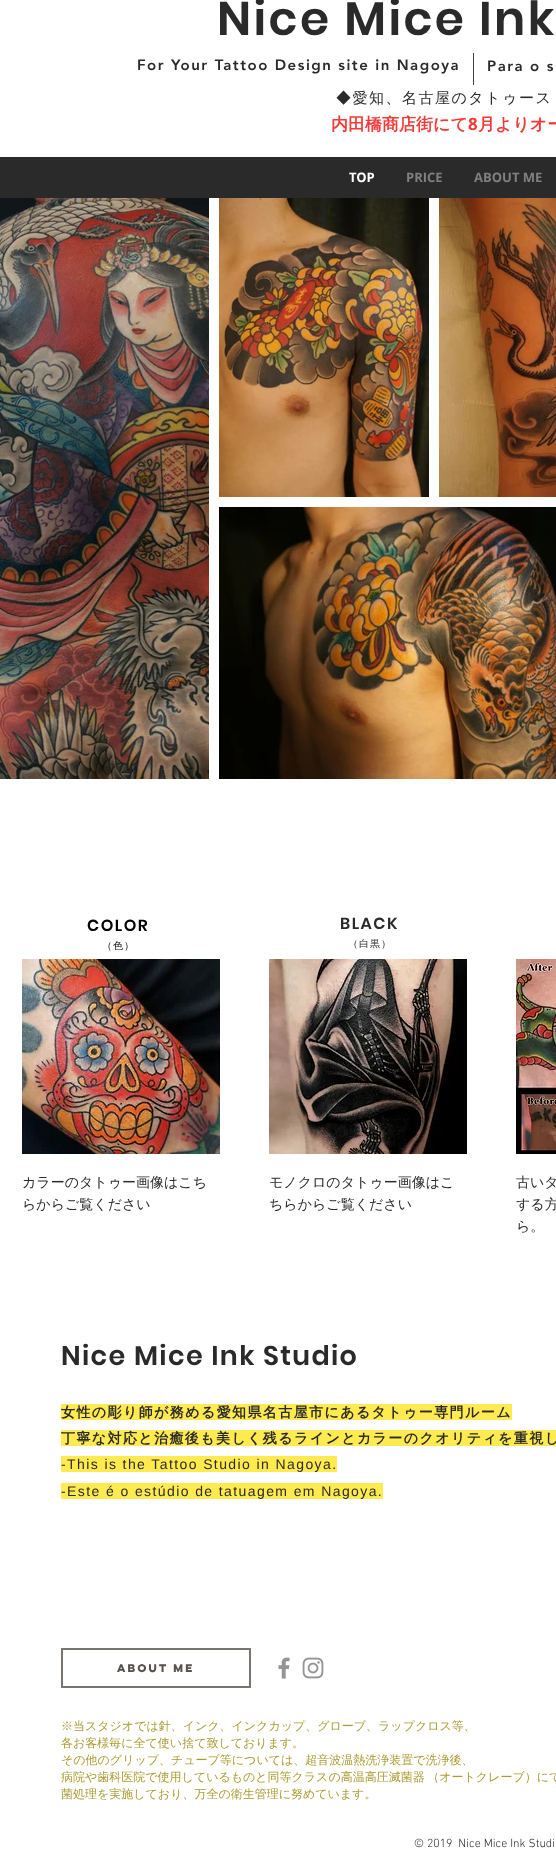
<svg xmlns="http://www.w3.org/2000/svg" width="556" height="1860">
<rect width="100%" height="100%" fill="#fff"/>
<text x="217" y="35" style="font-family:Poppins;font-size:47px;font-weight:600;letter-spacing:2.4px;fill:#2a2a2a">Nice Mice Ink</text>
<text x="137" y="70" style="font-family:'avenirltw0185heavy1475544';font-size:15px;font-weight:900;letter-spacing:1.5px;fill:#2a2a2a">For Your Tattoo Design site in Nagoya</text>
<text x="487" y="71" style="font-family:'avenirltw0185heavy1475544';font-size:15px;font-weight:900;letter-spacing:1.5px;fill:#2a2a2a">Para o s</text>
<text x="336" y="103" style="font-family:WenQuanYi Zen Hei;font-size:15px;font-weight:500;letter-spacing:1.5px;fill:#2a2a2a">◆愛知、名古屋のタトゥース</text>
<rect x="473" y="53" width="1" height="32" fill="#424242"/>
<text x="331" y="130" style="font-family:WenQuanYi Zen Hei;font-size:17px;font-weight:bold;fill:#f73939">内田橋商店街にて</text>
<text x="468" y="130" style="font-family:Open Sans;font-size:17px;font-weight:bold;fill:#f73939">8</text>
<text x="478" y="130" style="font-family:WenQuanYi Zen Hei;font-size:17px;font-weight:bold;fill:#f73939">月よりオー</text>
<image x="0" y="198" width="209" height="581" href="media/1.png"/>
<image x="219" y="198" width="210" height="299" href="media/2.png"/>
<image x="439" y="198" width="117" height="299" href="media/3.png"/>
<image x="219" y="507" width="337" height="272" href="media/4.png"/>
<text x="87" y="931" style="font-family:Poppins;font-size:16px;font-weight:600;letter-spacing:1.5px;fill:#000">COLOR</text>
<text x="102" y="949" style="font-family:WenQuanYi Zen Hei;font-size:10px;font-weight:500;letter-spacing:1px;fill:#000">（色）</text>
<image x="22" y="959" width="198" height="195" href="media/5.png"/>
<text x="22" y="1187" style="font-family:WenQuanYi Zen Hei;font-size:14px;font-weight:500;fill:#2a2a2a">カラーのタトゥー画像はこち</text>
<text x="22" y="1209" style="font-family:WenQuanYi Zen Hei;font-size:14px;font-weight:500;fill:#2a2a2a">らからご覧ください</text>
<text x="340" y="929" style="font-family:Poppins;font-size:16px;font-weight:600;letter-spacing:1.5px;fill:#2a2a2a">BLACK</text>
<text x="348" y="947" style="font-family:WenQuanYi Zen Hei;font-size:10px;font-weight:500;letter-spacing:1px;fill:#2a2a2a">（白黒）</text>
<image x="269" y="959" width="198" height="195" href="media/6.png"/>
<text x="269" y="1187" style="font-family:WenQuanYi Zen Hei;font-size:14px;font-weight:500;fill:#2a2a2a">モノクロのタトゥー画像はこ</text>
<text x="269" y="1209" style="font-family:WenQuanYi Zen Hei;font-size:14px;font-weight:500;fill:#2a2a2a">ちらからご覧ください</text>
<image x="516" y="959" width="40" height="195" href="media/7.png"/>
<text x="516" y="1187" style="font-family:WenQuanYi Zen Hei;font-size:14px;font-weight:500;fill:#2a2a2a">古いタ</text>
<text x="516" y="1209" style="font-family:WenQuanYi Zen Hei;font-size:14px;font-weight:500;fill:#2a2a2a">する方</text>
<text x="516" y="1231" style="font-family:WenQuanYi Zen Hei;font-size:14px;font-weight:500;fill:#2a2a2a">ら。</text>
<text x="61" y="1365" style="font-family:Poppins;font-size:27px;font-weight:600;letter-spacing:1.35px;fill:#2a2a2a">Nice Mice Ink Studio</text>
<rect x="61" y="1404" width="451" height="16" fill="#ffea4f"/>
<text x="61" y="1417" style="font-family:WenQuanYi Zen Hei;font-size:14px;font-weight:bold;letter-spacing:1.4px;fill:#2a2a2a">女性の彫り師が務める愛知県名古屋市にあるタトゥー専門ルーム</text>
<rect x="61" y="1430" width="495" height="16" fill="#ffea4f"/>
<text x="61" y="1443" style="font-family:WenQuanYi Zen Hei;font-size:14px;font-weight:bold;letter-spacing:1.4px;fill:#2a2a2a">丁寧な対応と治癒後も美しく残るラインとカラーのクオリティを重視し</text>
<rect x="61" y="1456" width="276" height="16" fill="#ffea4f"/>
<text x="61" y="1469" style="font-family:Liberation Sans;font-size:14px;letter-spacing:1.4px;fill:#2a2a2a">-This is the Tattoo Studio in Nagoya.</text>
<rect x="61" y="1483" width="322" height="16" fill="#ffea4f"/>
<text x="61" y="1496" style="font-family:Liberation Sans;font-size:14px;letter-spacing:1.4px;fill:#2a2a2a">-Este é o estúdio de tatuagem em Nagoya.</text>
<rect x="62" y="1649" width="188" height="38" fill="none" stroke="#7b736f" stroke-width="2"/>
<text x="117" y="1672" style="font-family:'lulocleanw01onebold';font-size:10px;font-weight:bold;fill:#59514d">ABOUT ME</text>
<image x="278" y="1657" width="12" height="22" href="media/8.png"/>
<image x="302" y="1657" width="22" height="22" href="media/9.png"/>
<text x="61" y="1730" style="font-family:WenQuanYi Zen Hei;font-size:12px;font-weight:500;fill:#aa9c35">※当スタジオでは針、インク、インクカップ、グローブ、ラップクロス等、</text>
<text x="61" y="1747" style="font-family:WenQuanYi Zen Hei;font-size:12px;font-weight:500;fill:#aa9c35">各お客様毎に全て使い捨て致しております。</text>
<text x="61" y="1764" style="font-family:WenQuanYi Zen Hei;font-size:12px;font-weight:500;fill:#aa9c35">その他のグリップ、チューブ等については、超音波温熱洗浄装置で洗浄後、</text>
<text x="61" y="1781" word-spacing="-1" style="font-family:WenQuanYi Zen Hei;font-size:12px;font-weight:500;fill:#aa9c35">病院や歯科医院で使用しているものと同等クラスの高温高圧滅菌器 （オートクレーブ）にて</text>
<text x="61" y="1798" style="font-family:WenQuanYi Zen Hei;font-size:12px;font-weight:500;fill:#aa9c35">菌処理を実施しており、万全の衛生管理に努めています。</text>
<rect y="157" width="556" height="41" fill="#2a2a2a"/>
<text x="349" y="182" style="font-family:Open Sans;font-size:13px;font-weight:bold;fill:#fff">TOP</text>
<text x="406" y="182" style="font-family:Open Sans;font-size:13px;font-weight:bold;fill:#808080">PRICE</text>
<text x="474" y="182" style="font-family:Open Sans;font-size:13px;font-weight:bold;fill:#808080">ABOUT ME</text>
<text x="414" y="1847" style="font-family:'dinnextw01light';font-size:12px;font-weight:300;fill:#2a2a2a" xml:space="preserve">© 2019  Nice Mice Ink Studi</text>
</svg>
